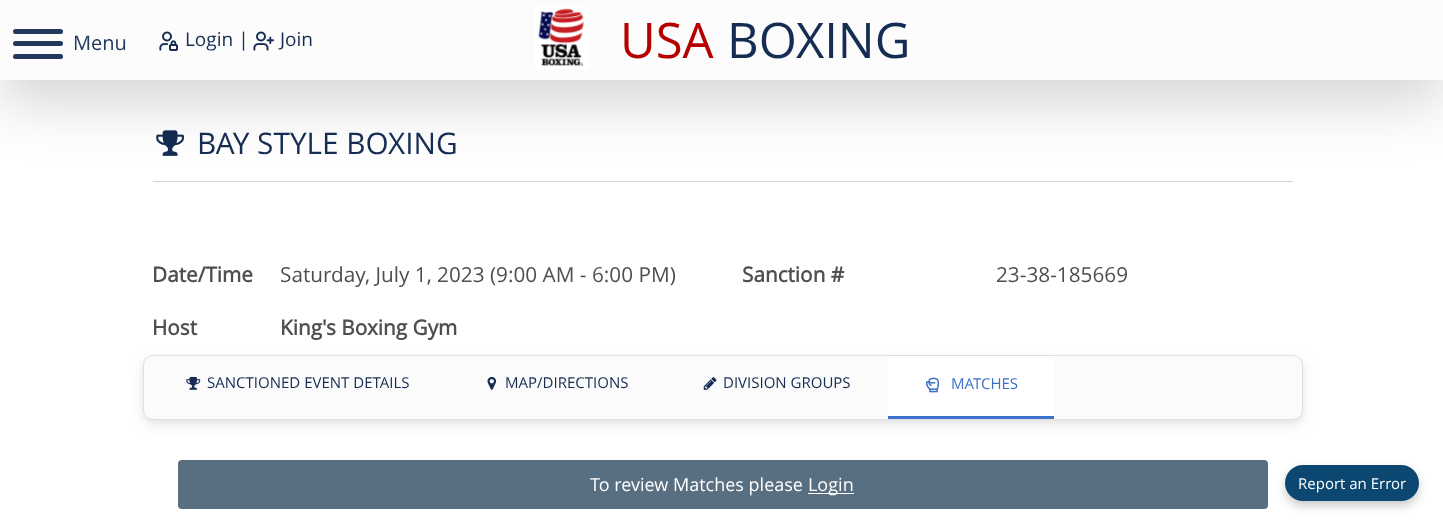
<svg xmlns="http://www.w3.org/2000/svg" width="1443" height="526">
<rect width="100%" height="100%" fill="#fff"/>
<image x="156" y="130" width="28" height="26" href="media/4.png"/>
<rect x="153" y="181" width="1140" height="1" fill="#d3d3d3"/>
<rect y="20" width="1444" height="80" fill="#0000002e" filter="blur(30px)"/>
<rect width="1443" height="80" fill="#fcfcfc"/>
<rect x="13" y="29" width="50" height="5" rx="2.5" fill="#23385d"/>
<rect x="13" y="41" width="50" height="5" rx="2.5" fill="#23385d"/>
<rect x="13" y="54" width="50" height="5" rx="2.5" fill="#23385d"/>
<text x="73" y="50" style="font-family:Open Sans;font-size:20px;fill:#23385d">Menu</text>
<image x="159" y="31" width="19" height="20" href="media/1.png"/>
<text x="185" y="46" style="font-family:Open Sans;font-size:19px;fill:#152c53">Login |</text>
<image x="253" y="31" width="22" height="20" href="media/2.png"/>
<text x="280" y="46" style="font-family:Open Sans;font-size:19px;fill:#152c53">Join</text>
<rect x="534" y="6" width="55" height="63" rx="2.5" fill="#fff"/>
<image x="538" y="8" width="46" height="59" href="media/3.png"/>
<text x="620" y="58" style="font-family:Open Sans;font-size:49px;fill:#b60000">USA</text>
<text x="727" y="58" style="font-family:Open Sans;font-size:49px;fill:#152c53">BOXING</text>
<text x="197" y="154" style="font-family:Open Sans;font-size:29.75px;fill:#152c53">BAY STYLE BOXING</text>
<text x="152" y="282" style="font-family:Open Sans;font-size:20.75px;font-weight:bold;fill:#4f4f4f">Date/Time</text>
<text x="280" y="282" style="font-family:Open Sans;font-size:20.75px;fill:#4f4f4f">Saturday, July 1, 2023 (9:00 AM - 6:00 PM)</text>
<text x="152" y="335" style="font-family:Open Sans;font-size:20.75px;font-weight:bold;fill:#4f4f4f">Host</text>
<text x="280" y="335" style="font-family:Open Sans;font-size:20.75px;font-weight:bold;fill:#4f4f4f">King's Boxing Gym</text>
<text x="742" y="282" style="font-family:Open Sans;font-size:20.75px;font-weight:bold;fill:#4f4f4f">Sanction #</text>
<text x="996" y="282" style="font-family:Open Sans;font-size:20.75px;fill:#4f4f4f">23-38-185669</text>
<rect x="143" y="358" width="1160" height="65" rx="10" fill="#0000000d" filter="blur(2.5px)"/>
<rect x="143" y="360" width="1160" height="65" rx="10" fill="#00000012" filter="blur(7.5px)"/>
<rect x="143.5" y="355.5" width="1159" height="64" rx="9.5" fill="#fbfbfb" stroke="#e0e0e0"/>
<image x="186" y="376" width="15" height="14" href="media/5.png"/>
<text x="207" y="388" style="font-family:Open Sans;font-size:15px;fill:#152c53">SANCTIONED EVENT DETAILS</text>
<image x="487" y="377" width="10" height="13" href="media/6.png"/>
<text x="505" y="388" style="font-family:Open Sans;font-size:15px;fill:#152c53">MAP/DIRECTIONS</text>
<image x="703" y="377" width="14" height="13" href="media/7.png"/>
<text x="723" y="388" style="font-family:Open Sans;font-size:15px;fill:#152c53">DIVISION GROUPS</text>
<rect x="888" y="356" width="166" height="60" fill="#fff"/>
<rect x="888" y="416" width="166" height="3" fill="#3b71ca"/>
<image x="926" y="377" width="14" height="16" href="media/8.png"/>
<text x="951" y="389" style="font-family:Open Sans;font-size:15px;fill:#3b71ca">MATCHES</text>
<rect x="178" y="460" width="1090" height="49" rx="4" fill="#586e81"/>
<text x="590" y="491" style="font-family:Open Sans;font-size:18px;fill:#fff">To review Matches please</text>
<rect x="808" y="493" width="46" height="1" fill="#fff"/>
<text x="808" y="491" style="font-family:Open Sans;font-size:18px;fill:#fff">Login</text>
<rect x="1285" y="470" width="134" height="36" rx="18" fill="#00000033" filter="blur(5px)"/>
<rect x="1285" y="465" width="134" height="36" rx="18" fill="#0b4771"/>
<text x="1298" y="489" style="font-family:Open Sans;font-size:15px;fill:#fff">Report an Error</text>
</svg>
